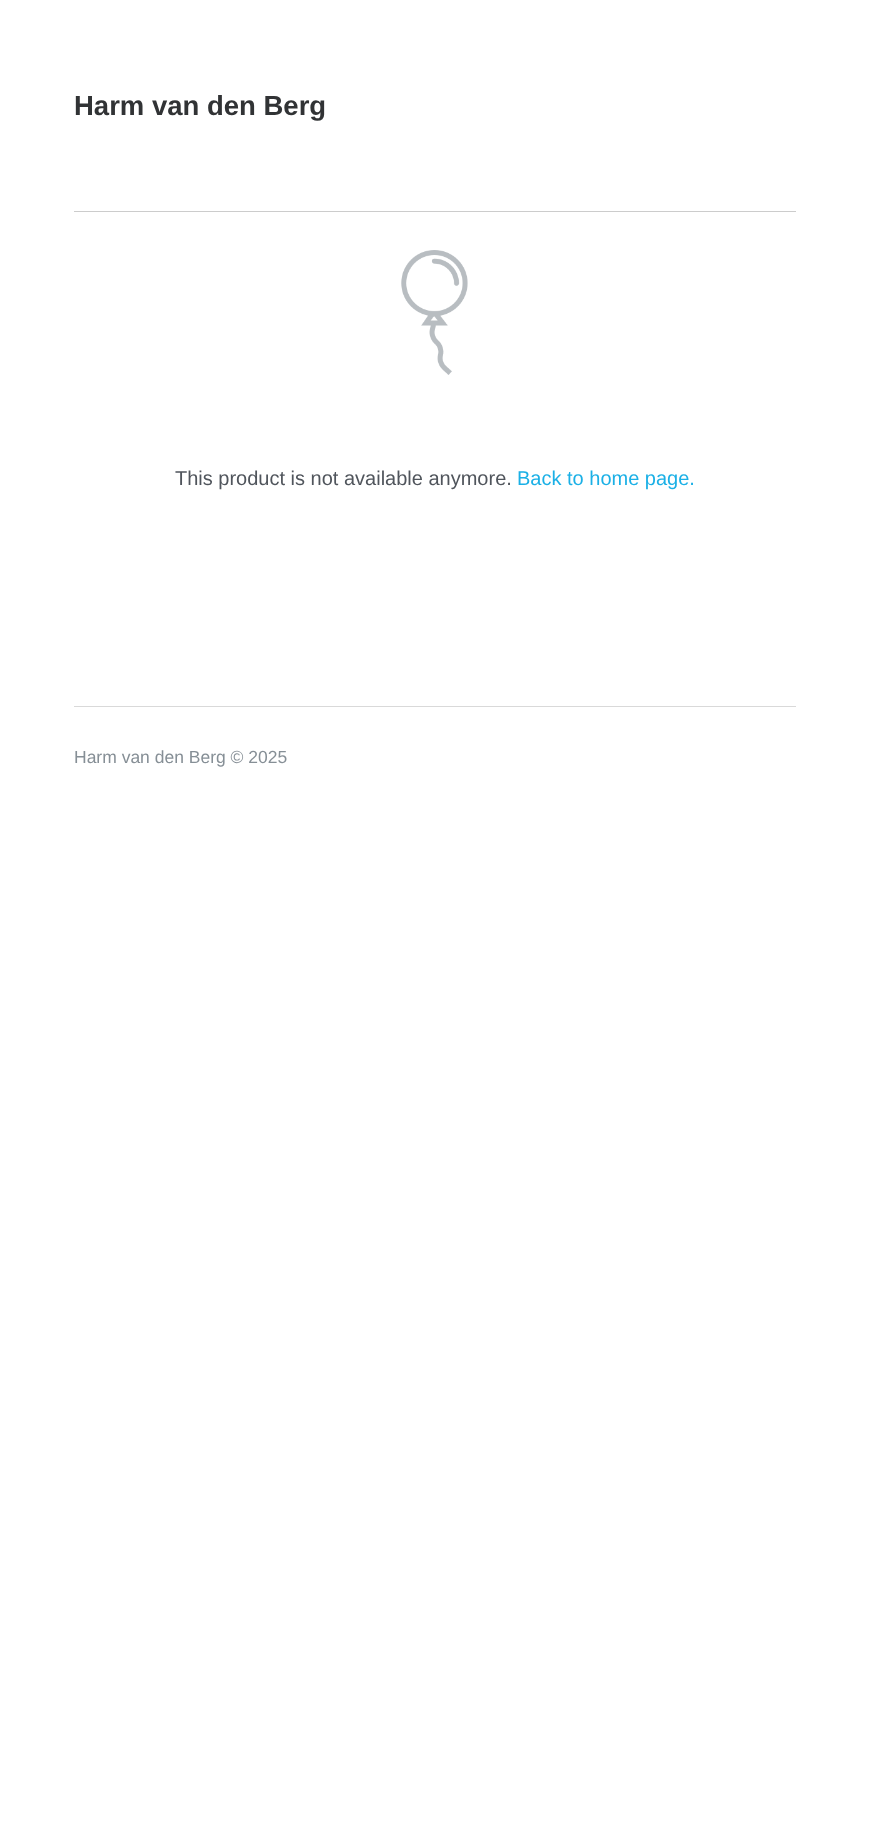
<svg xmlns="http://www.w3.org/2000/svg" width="870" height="1836">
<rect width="100%" height="100%" fill="#fff"/>
<rect x="74" y="211" width="722" height="1" fill="#ccc"/>
<text x="74" y="115" style="font-family:Liberation Sans;font-size:27.5px;font-weight:bold;fill:#313335">Harm van den Berg</text>
<image x="401" y="250" width="67" height="125" href="media/1.png"/>
<text x="175" y="485" style="font-family:Liberation Sans;font-size:20px;fill:#50555c">This product is not available anymore.</text>
<text x="517" y="485" style="font-family:Liberation Sans;font-size:20px;fill:#1bb0e6">Back to home page.</text>
<rect x="74" y="706" width="722" height="1" fill="#d9d9d9"/>
<text x="74" y="763" style="font-family:Liberation Sans;font-size:17.5px;fill:#868f96">Harm van den Berg © 2025</text>
</svg>
